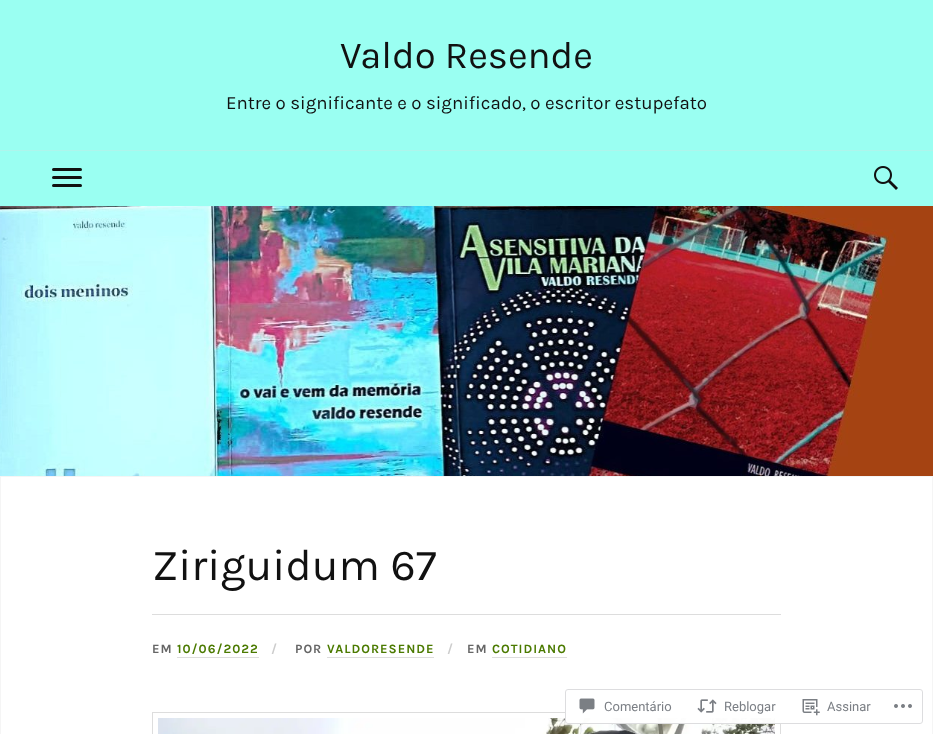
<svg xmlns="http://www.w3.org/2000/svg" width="933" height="734">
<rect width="100%" height="100%" fill="#9afff2"/>
<text x="340" y="68" style="font-family:Karla;font-size:38.25px;fill:#111">Valdo Resende</text>
<text x="226" y="109" style="font-family:Karla;font-size:18.7px;fill:#111">Entre o significante e o significado, o escritor estupefato</text>
<rect y="150" width="933" height="1" fill="#aef5ec"/>
<rect x="52" y="168" width="30" height="3" rx="1.5" fill="#111"/>
<rect x="52" y="176" width="30" height="3" rx="1.5" fill="#111"/>
<rect x="52" y="184" width="30" height="3" rx="1.5" fill="#111"/>
<image x="874" y="166" width="24" height="24" href="media/1.png"/>
<image x="0" y="206" width="933" height="270" href="media/2.png"/>
<rect y="476" width="933" height="258" fill="#fff"/>
<path d="M0 476h933l-1 1h-931z" fill="#f5f5f5"/>
<path d="M933 476v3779h-1v-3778z" fill="#dddddd4d"/>
<path d="M0 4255v-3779l1 1v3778z" fill="#dddddd4d"/>
<text x="152" y="580" style="font-family:Karla;font-size:44.25px;fill:#111">Ziriguidum 67</text>
<rect x="152" y="614" width="629" height="1" fill="#ddd"/>
<text x="152" y="653" style="font-family:Karla;font-size:12.75px;font-weight:bold;letter-spacing:1px;fill:#666">EM</text>
<text x="177" y="653" style="font-family:Karla;font-size:12.75px;font-weight:bold;letter-spacing:1px;fill:#4b7a00">10/06/2022</text>
<rect x="177" y="657" width="82" height="1" fill="#ddd"/>
<text x="271" y="653" style="font-family:Karla;font-size:12.75px;font-weight:bold;letter-spacing:1px;fill:#ccc">/</text>
<text x="295" y="653" style="font-family:Karla;font-size:12.75px;font-weight:bold;letter-spacing:1px;fill:#666">POR</text>
<text x="327" y="653" style="font-family:Karla;font-size:12.75px;font-weight:bold;letter-spacing:1px;fill:#4b7a00">VALDORESENDE</text>
<rect x="327" y="657" width="107" height="1" fill="#ddd"/>
<text x="447" y="653" style="font-family:Karla;font-size:12.75px;font-weight:bold;letter-spacing:1px;fill:#ccc">/</text>
<text x="467" y="653" style="font-family:Karla;font-size:12.75px;font-weight:bold;letter-spacing:1px;fill:#666">EM</text>
<text x="492" y="653" style="font-family:Karla;font-size:12.75px;font-weight:bold;letter-spacing:1px;fill:#4b7a00">COTIDIANO</text>
<rect x="492" y="657" width="75" height="1" fill="#ddd"/>
<rect x="152.5" y="712.5" width="628" height="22" fill="none" stroke="#ddd"/>
<image x="158" y="718" width="617" height="16" href="media/3.png"/>
<rect x="565" y="689" width="358" height="35" rx="3" fill="#fffffffa"/>
<rect x="565.5" y="689.5" width="357" height="34" rx="2.5" fill="none" stroke="#dcdcdefa"/>
<image x="579" y="698" width="16" height="16" href="media/4.png"/>
<text x="604" y="711" style="font-family:Roboto;font-size:13px;fill:#7b7f85">Comentário</text>
<image x="697" y="699" width="20" height="14" href="media/5.png"/>
<text x="724" y="711" style="font-family:Roboto;font-size:13px;fill:#7b7f85">Reblogar</text>
<image x="802" y="699" width="18" height="17" href="media/6.png"/>
<text x="827" y="711" style="font-family:Roboto;font-size:13px;fill:#7b7f85">Assinar</text>
<image x="894" y="704" width="18" height="4" href="media/7.png"/>
</svg>
